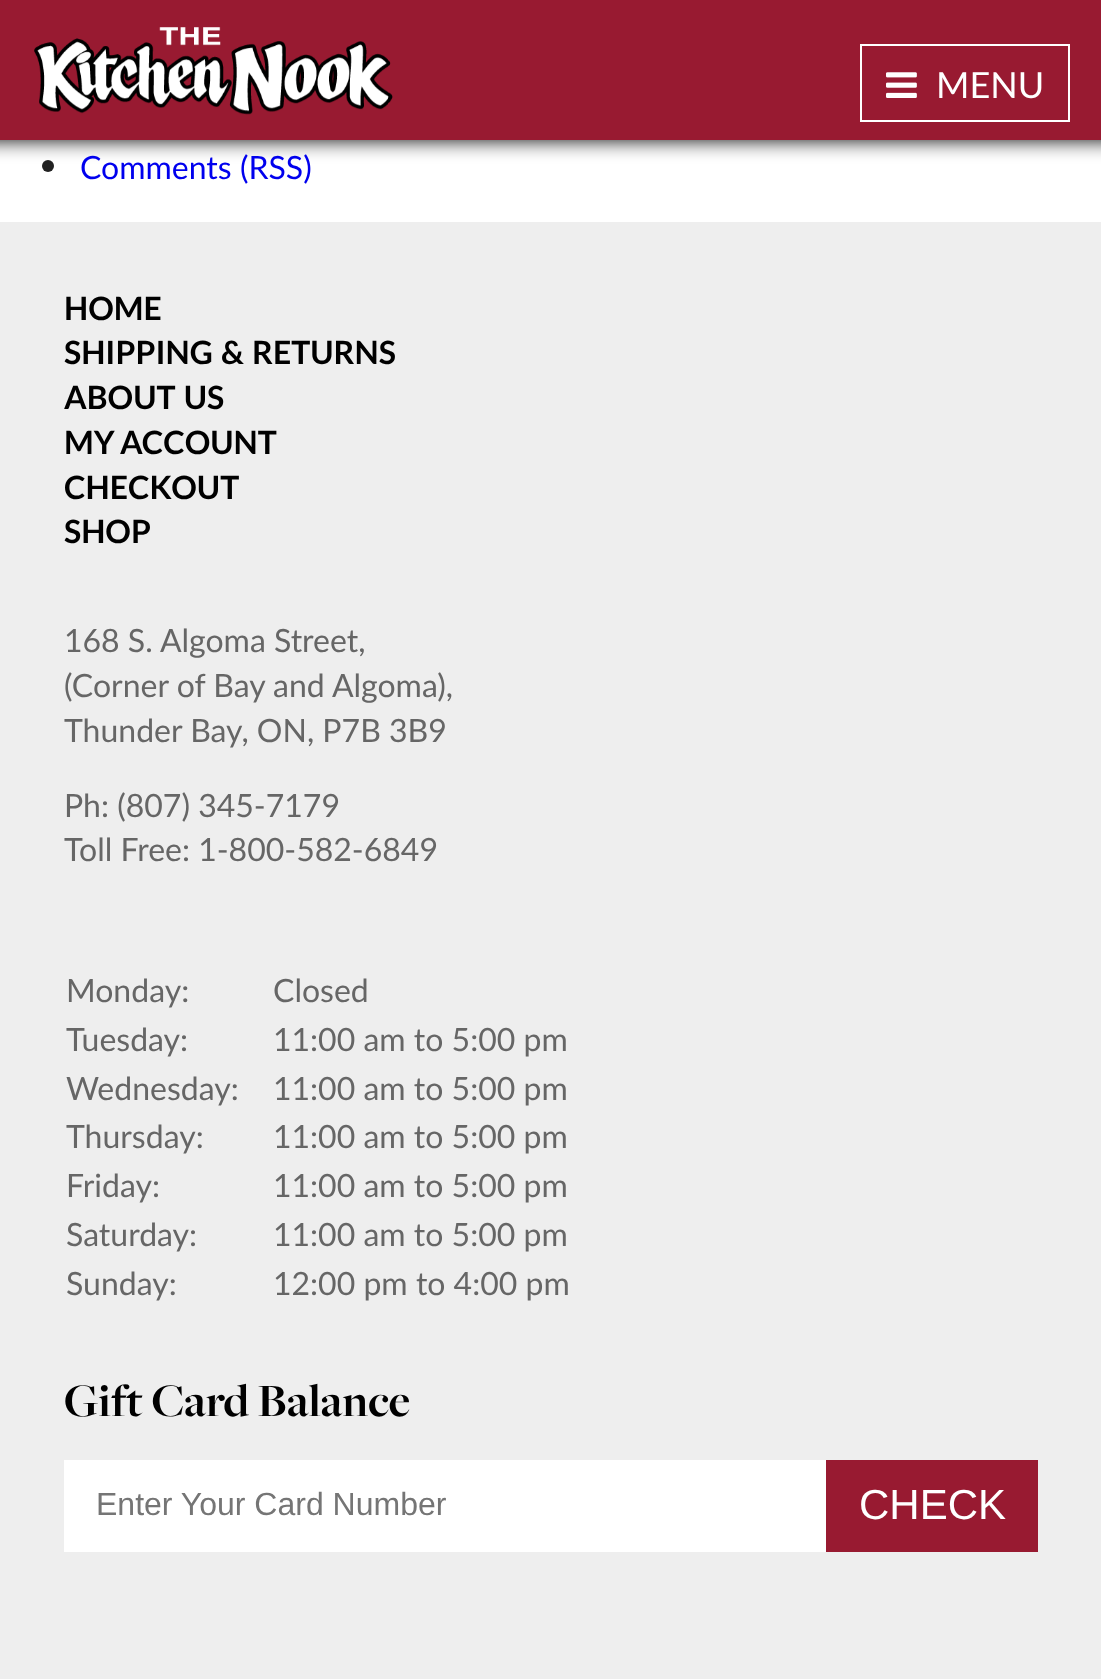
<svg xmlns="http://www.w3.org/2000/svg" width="1101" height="1679">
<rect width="100%" height="100%" fill="#fff"/>
<circle cx="48" cy="166" r="6" fill="#222"/>
<rect x="-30" y="-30" width="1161" height="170" fill="#000" filter="blur(10px)"/>
<rect width="1101" height="140" fill="#981a31"/>
<image x="34" y="27" width="359" height="88" href="media/1.png"/>
<rect x="861" y="45" width="208" height="76" fill="none" stroke="#fff" stroke-width="2"/>
<image x="886" y="72" width="31" height="26" href="media/2.png"/>
<text x="936" y="98" style="font-family:Lato;font-size:36px;fill:#fff">MENU</text>
<text x="80" y="179" style="font-family:Lato;font-size:32px;fill:#00e">Comments (RSS)</text>
<rect y="222" width="1101" height="1457" fill="#eee"/>
<text x="64" y="320" style="font-family:Lato;font-size:32px;font-weight:bold;fill:#000">HOME</text>
<text x="64" y="364" word-spacing="2" style="font-family:Lato;font-size:32px;font-weight:bold;fill:#000">SHIPPING &amp; RETURNS</text>
<text x="64" y="409" word-spacing="2" style="font-family:Lato;font-size:32px;font-weight:bold;fill:#000">ABOUT US</text>
<text x="64" y="454" word-spacing="-1" style="font-family:Lato;font-size:32px;font-weight:bold;fill:#000">MY ACCOUNT</text>
<text x="64" y="499" style="font-family:Lato;font-size:32px;font-weight:bold;fill:#000">CHECKOUT</text>
<text x="64" y="543" style="font-family:Lato;font-size:32px;font-weight:bold;fill:#000">SHOP</text>
<text x="64" y="652" style="font-family:Lato;font-size:32px;fill:#666">168 S. Algoma Street,</text>
<text x="64" y="697" style="font-family:Lato;font-size:32px;fill:#666">(Corner of Bay and Algoma),</text>
<text x="64" y="742" style="font-family:Lato;font-size:32px;fill:#666">Thunder Bay, ON, P7B 3B9</text>
<text x="64" y="817" style="font-family:Lato;font-size:32px;fill:#666">Ph: (807) 345-7179</text>
<text x="64" y="861" style="font-family:Lato;font-size:32px;fill:#666">Toll Free: 1-800-582-6849</text>
<text x="66" y="1002" style="font-family:Lato;font-size:32px;fill:#666">Monday:</text>
<text x="273" y="1002" style="font-family:Lato;font-size:32px;fill:#666">Closed</text>
<text x="66" y="1051" style="font-family:Lato;font-size:32px;fill:#666">Tuesday:</text>
<text x="273" y="1051" style="font-family:Lato;font-size:32px;fill:#666">11:00 am to 5:00 pm</text>
<text x="66" y="1100" style="font-family:Lato;font-size:32px;fill:#666">Wednesday:</text>
<text x="273" y="1100" style="font-family:Lato;font-size:32px;fill:#666">11:00 am to 5:00 pm</text>
<text x="66" y="1148" style="font-family:Lato;font-size:32px;fill:#666">Thursday:</text>
<text x="273" y="1148" style="font-family:Lato;font-size:32px;fill:#666">11:00 am to 5:00 pm</text>
<text x="66" y="1197" style="font-family:Lato;font-size:32px;fill:#666">Friday:</text>
<text x="273" y="1197" style="font-family:Lato;font-size:32px;fill:#666">11:00 am to 5:00 pm</text>
<text x="66" y="1246" style="font-family:Lato;font-size:32px;fill:#666">Saturday:</text>
<text x="273" y="1246" style="font-family:Lato;font-size:32px;fill:#666">11:00 am to 5:00 pm</text>
<text x="66" y="1295" style="font-family:Lato;font-size:32px;fill:#666">Sunday:</text>
<text x="273" y="1295" style="font-family:Lato;font-size:32px;fill:#666">12:00 pm to 4:00 pm</text>
<text x="64" y="1416" style="font-family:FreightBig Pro;font-size:48px;font-weight:bold;fill:#000">Gift Card Balance</text>
<rect x="64" y="1460" width="762" height="92" fill="#fff"/>
<text x="96" y="1515" style="font-family:Liberation Sans;font-size:32px;fill:#757575">Enter Your Card Number</text>
<rect x="826" y="1460" width="212" height="92" fill="#981a31"/>
<text x="859" y="1519" style="font-family:Liberation Sans;font-size:42px;fill:#fff">CHECK</text>
</svg>
